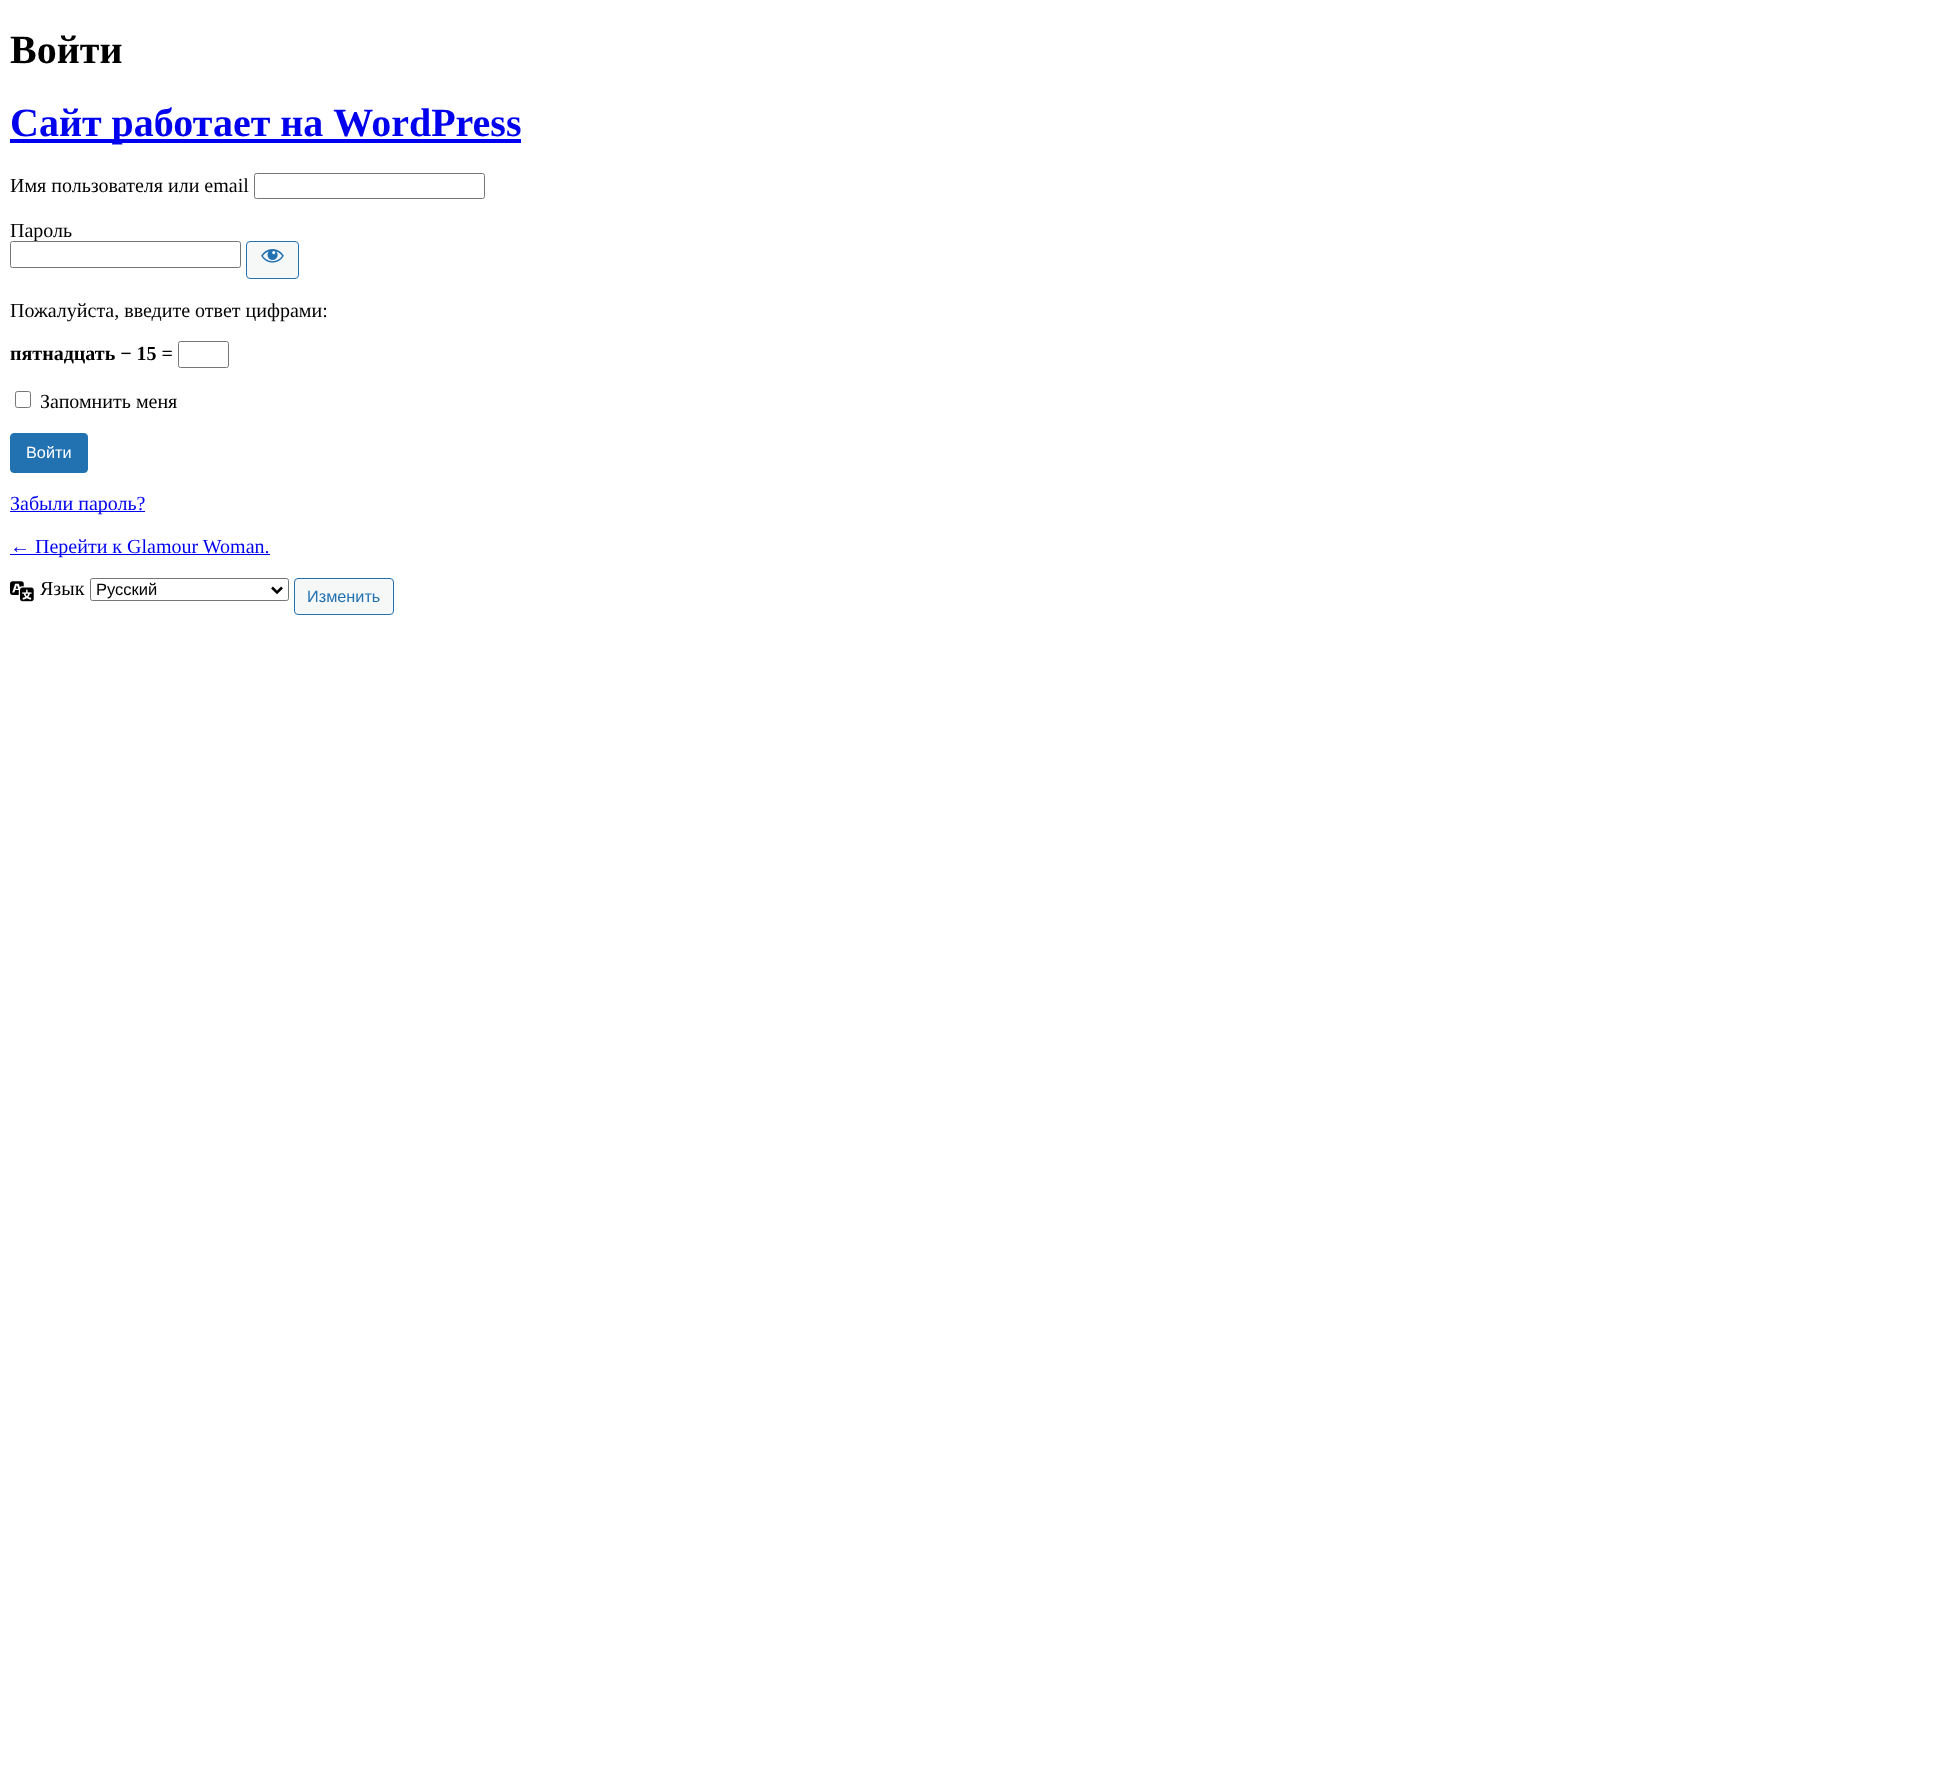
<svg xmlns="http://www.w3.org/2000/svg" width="1933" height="1778">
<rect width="100%" height="100%" fill="#fff"/>
<text x="10" y="63" style="font-family:Liberation Serif;font-size:40px;font-weight:bold;fill:#000">Войти</text>
<rect x="10" y="139" width="511" height="4" fill="#00e"/>
<text x="10" y="136" style="font-family:Liberation Serif;font-size:40px;font-weight:bold;fill:#00e">Сайт работает на WordPress</text>
<text x="10" y="192" style="font-family:Liberation Serif;font-size:20px;fill:#000">Имя пользователя или email</text>
<rect x="254.5" y="173.5" width="230" height="25" rx="2" fill="none" stroke="#767676"/>
<text x="10" y="237" style="font-family:Liberation Serif;font-size:20px;fill:#000">Пароль</text>
<rect x="10.5" y="241.5" width="230" height="26" rx="2" fill="#fff" stroke="#767676"/>
<rect x="246.5" y="241.5" width="52" height="37" rx="3.5" fill="#f6f7f7" stroke="#2271b1"/>
<image x="261" y="249" width="23" height="14" href="media/1.png"/>
<text x="10" y="317" style="font-family:Liberation Serif;font-size:20px;fill:#000">Пожалуйста, введите ответ цифрами:</text>
<text x="10" y="360" style="font-family:Liberation Serif;font-size:20px;font-weight:bold;fill:#000">пятнадцать − 15 =</text>
<rect x="178.5" y="341.5" width="50" height="26" rx="2" fill="none" stroke="#767676"/>
<rect x="15.5" y="391.5" width="15" height="16" rx="2" fill="none" stroke="#767676"/>
<text x="40" y="408" style="font-family:Liberation Serif;font-size:20px;fill:#000">Запомнить меня</text>
<rect x="10.5" y="433.5" width="77" height="39" rx="3.5" fill="#2271b1" stroke="#2271b1"/>
<text x="26" y="458" style="font-family:Liberation Sans;font-size:16.25px;fill:#fff">Войти</text>
<rect x="10" y="511" width="135" height="1" fill="#00e"/>
<text x="10" y="510" style="font-family:Liberation Serif;font-size:20px;fill:#00e">Забыли пароль?</text>
<rect x="10" y="554" width="260" height="1" fill="#00e"/>
<text x="10" y="553" style="font-family:Liberation Serif;font-size:20px;fill:#00e">← Перейти к Glamour Woman.</text>
<image x="10" y="581" width="24" height="21" href="media/2.png"/>
<text x="40" y="595" style="font-family:Liberation Serif;font-size:20px;fill:#000">Язык</text>
<rect x="90.5" y="578.5" width="198" height="22" rx="2" fill="none" stroke="#767676"/>
<path d="M272 587.5l5 5l5-5" fill="none" stroke="#000" stroke-width="2.5"/>
<text x="96" y="595" style="font-family:Liberation Sans;font-size:16.5px;fill:#000">Русский</text>
<rect x="294.5" y="578.5" width="99" height="36" rx="3.5" fill="#f6f7f7" stroke="#2271b1"/>
<text x="307" y="602" style="font-family:Liberation Sans;font-size:16.25px;fill:#2271b1">Изменить</text>
</svg>
